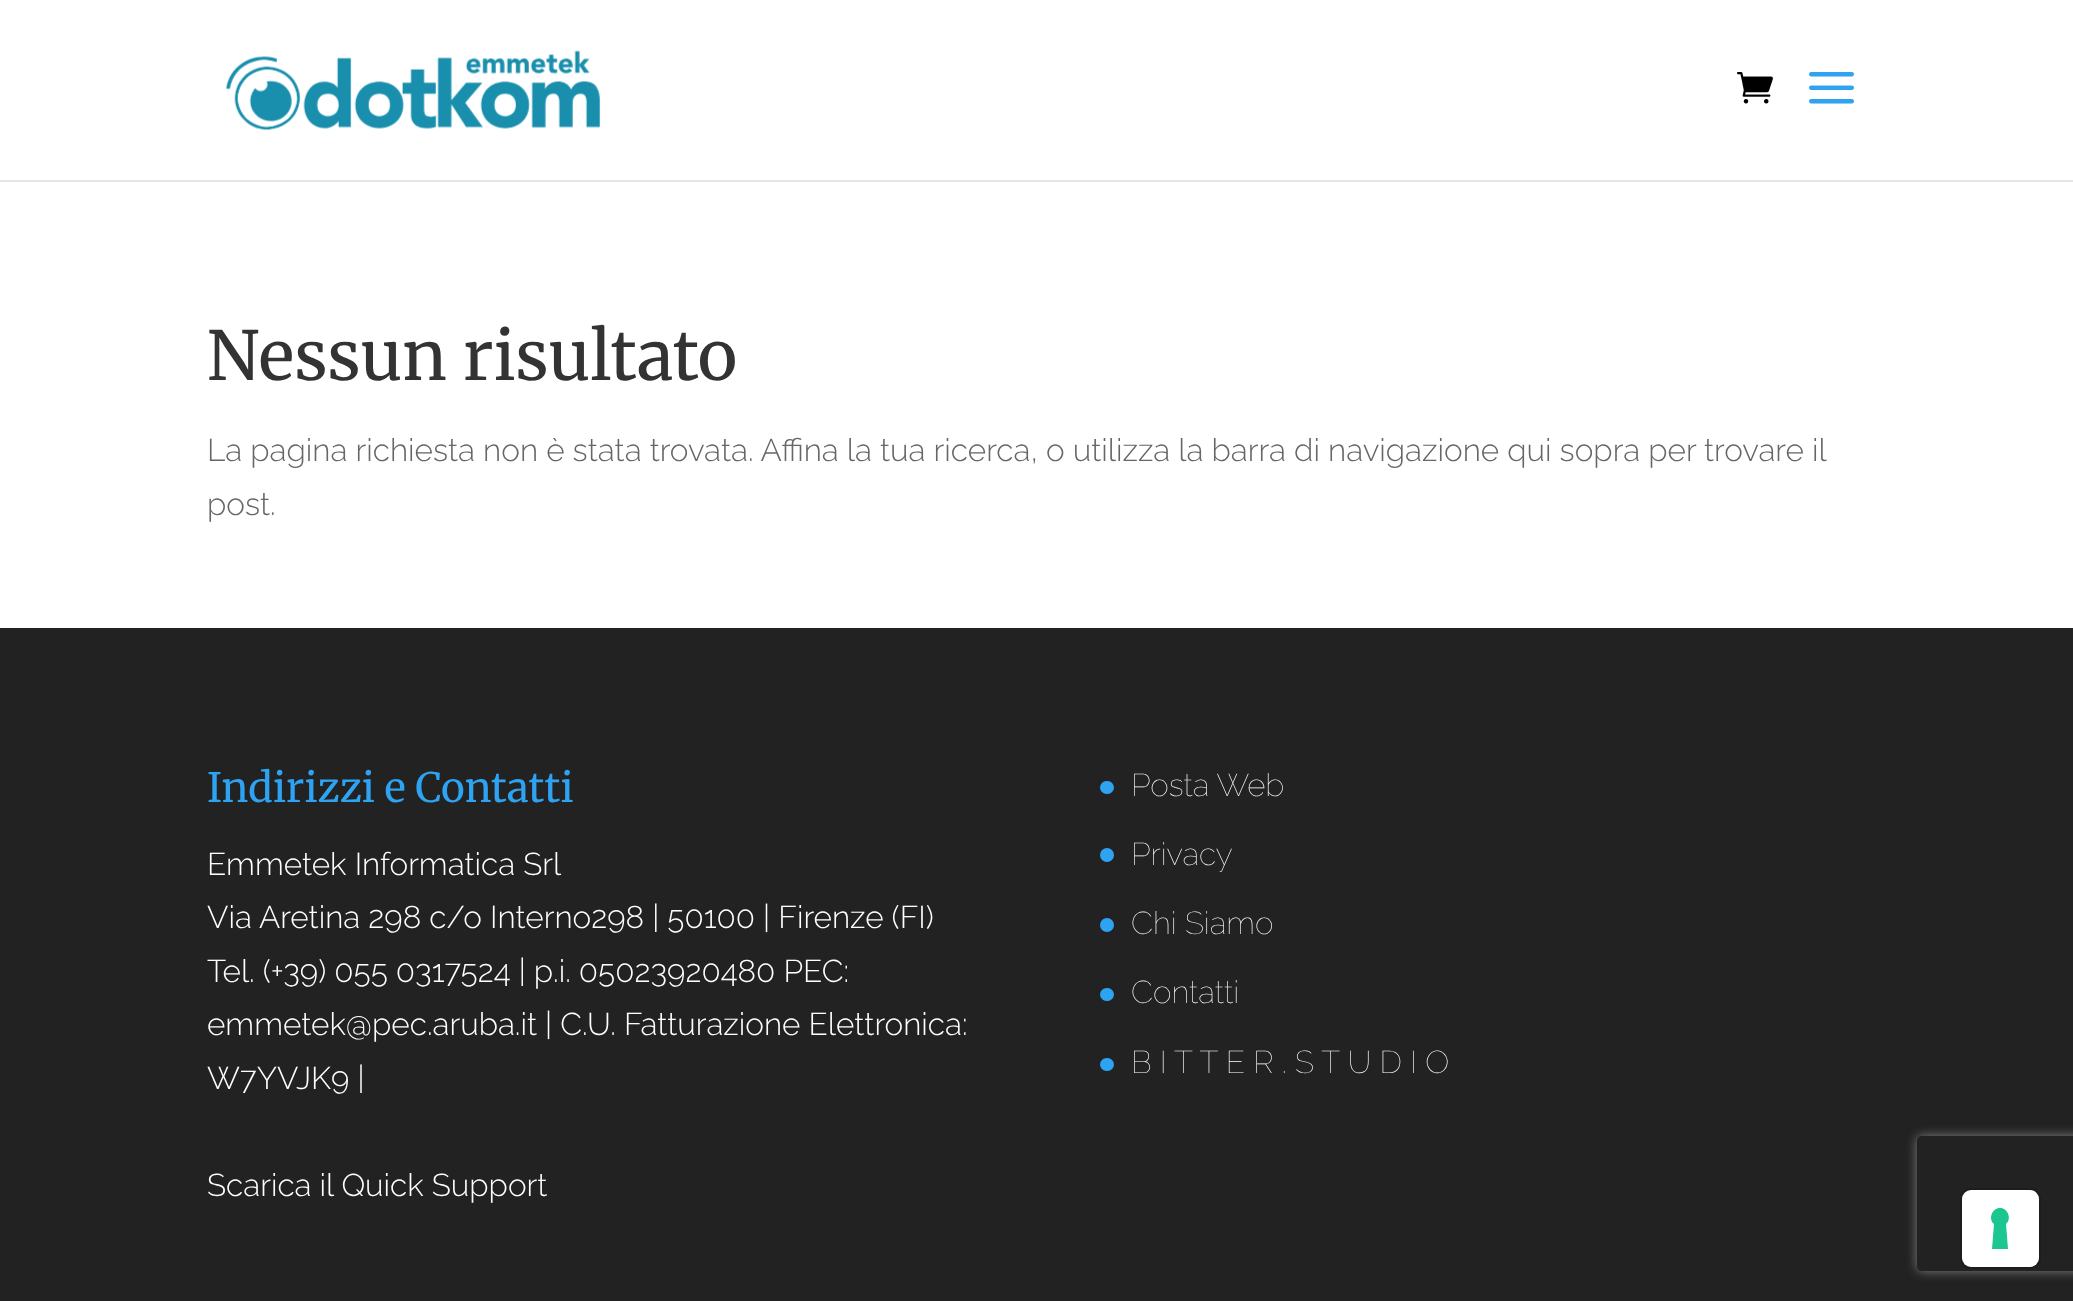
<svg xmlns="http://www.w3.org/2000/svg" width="2073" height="1301">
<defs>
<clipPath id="clip1"><path d="M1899 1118h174v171h-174zm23 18h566c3 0 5 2 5 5v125c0 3-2 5-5 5h-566c-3 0-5-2-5-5v-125c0-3 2-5 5-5z" clip-rule="evenodd"/></clipPath>
</defs>
<rect width="100%" height="100%" fill="#fff"/>
<path d="M0 180v2h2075v-180h-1v178z" fill="#e6e6e6"/>
<image x="225" y="50" width="376" height="80" href="media/1.png"/>
<image x="1737" y="72" width="36" height="32" href="media/2.png"/>
<image x="1809" y="72" width="45" height="32" href="media/3.png"/>
<text x="207" y="380" style="font-family:Merriweather;font-size:67.5px;fill:#333">Nessun risultato</text>
<text x="207" y="461" style="font-family:Raleway;font-size:31.5px;font-weight:300;fill:#666">La pagina richiesta non è stata trovata. Affina la tua ricerca, o utilizza la barra di navigazione qui sopra per trovare il</text>
<text x="207" y="515" style="font-family:Raleway;font-size:31.5px;font-weight:300;fill:#666">post.</text>
<rect y="628" width="2073" height="673" fill="#222"/>
<text x="207" y="802" style="font-family:Merriweather;font-size:40.5px;fill:#2ea3f2">Indirizzi e Contatti</text>
<text x="207" y="875" style="font-family:Raleway;font-size:31.5px;font-weight:300;fill:#fff">Emmetek Informatica Srl</text>
<text x="207" y="928" style="font-family:Raleway;font-size:31.5px;font-weight:300;fill:#fff">Via Aretina 298 c/o Interno298 | 50100 | Firenze (FI)</text>
<text x="207" y="982" style="font-family:Raleway;font-size:31.5px;font-weight:300;fill:#fff">Tel. (+39) 055 0317524 | p.i. 05023920480 PEC:</text>
<text x="207" y="1035" style="font-family:Raleway;font-size:31.5px;font-weight:300;fill:#fff">emmetek@pec.aruba.it | C.U. Fatturazione Elettronica:</text>
<text x="207" y="1089" style="font-family:Raleway;font-size:31.5px;font-weight:300;fill:#fff">W7YVJK9 |</text>
<text x="207" y="1196" style="font-family:Raleway;font-size:31.5px;font-weight:300;fill:#fff">Scarica il Quick Support</text>
<rect x="1100" y="781" width="14" height="13" rx="6.5" fill="#2ea3f2"/>
<text x="1131" y="796" style="font-family:Raleway;font-size:31.5px;font-weight:100;fill:#fff">Posta Web</text>
<circle cx="1107" cy="855" r="7" fill="#2ea3f2"/>
<text x="1131" y="865" style="font-family:Raleway;font-size:31.5px;font-weight:100;fill:#fff">Privacy</text>
<circle cx="1107" cy="925" r="7" fill="#2ea3f2"/>
<text x="1131" y="934" style="font-family:Raleway;font-size:31.5px;font-weight:100;fill:#fff">Chi Siamo</text>
<rect x="1100" y="988" width="14" height="13" rx="6.5" fill="#2ea3f2"/>
<text x="1131" y="1003" style="font-family:Raleway;font-size:31.5px;font-weight:100;fill:#fff">Contatti</text>
<rect x="1100" y="1058" width="14" height="13" rx="6.5" fill="#2ea3f2"/>
<text x="1131" y="1073" style="font-family:Raleway;font-size:31.5px;font-weight:100;fill:#fff">B I T T E R . S T U D I O</text>
<g clip-path="url(#clip1)">
<rect x="1917" y="1136" width="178" height="135" rx="5" fill="#808080" filter="blur(5.5px)"/>
</g>
<rect x="1961" y="1189" width="79" height="79" rx="10" fill="none" stroke="#1d1d1d" stroke-width="2"/>
<rect x="1962" y="1190" width="77" height="77" rx="9" fill="#fff"/>
<path d="M2000 1208c8 0 12 11 6 16l2 25h-16l2-25c-6-5-2-16 6-16z" fill="#1cc691" fill-rule="evenodd"/>
</svg>
